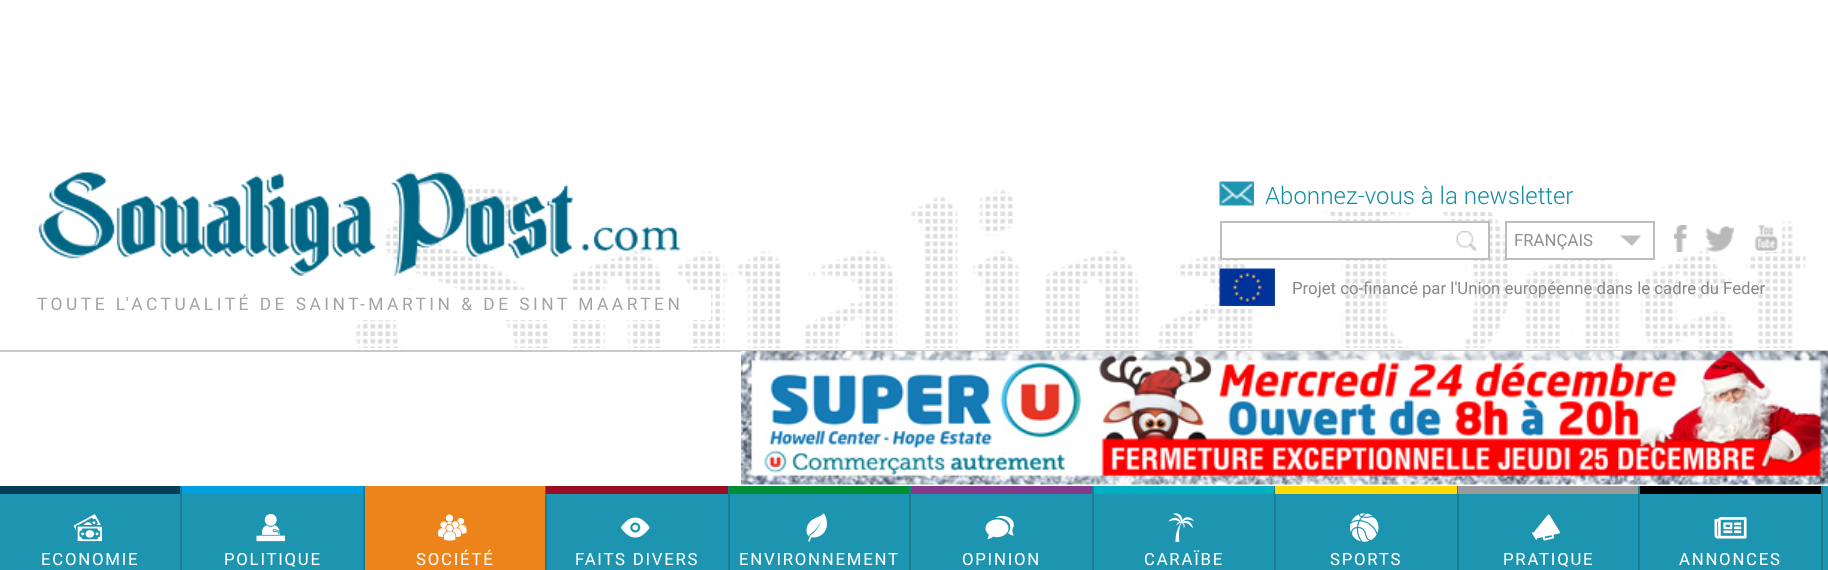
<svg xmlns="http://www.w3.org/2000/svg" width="1828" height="570">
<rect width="100%" height="100%" fill="#fff"/>
<image x="355" y="184" width="1452" height="164" href="media/1.png"/>
<image x="38" y="171" width="644" height="105" href="media/2.png"/>
<rect x="1322" y="188" width="171" height="24" fill="#fff"/>
<image x="1219" y="181" width="35" height="25" href="media/3.png"/>
<text x="1265" y="204" style="font-family:Roboto;font-size:24px;font-weight:300;fill:#158ca7">Abonnez-vous à la newsletter</text>
<rect y="350" width="1828" height="2" fill="#c9c9c9"/>
<rect x="1221" y="222" width="268" height="37" fill="#fff" stroke="#bebebe" stroke-width="2"/>
<image x="1456" y="231" width="20" height="20" href="media/4.png"/>
<rect x="1507" y="242" width="99" height="16" fill="#fff"/>
<rect x="1506" y="222" width="148" height="37" fill="none" stroke="#bebebe" stroke-width="2"/>
<text x="1514" y="246" style="font-family:Roboto;font-size:16.8px;fill:#919191">FRANÇAIS</text>
<path d="M1620 235.5h21l-9 10.5z" fill="#bebebe"/>
<image x="1674" y="225" width="14" height="27" href="media/5.png"/>
<image x="1705" y="226" width="29" height="26" href="media/6.png"/>
<image x="1754" y="225" width="28" height="27" href="media/7.png"/>
<image x="1219" y="268" width="56" height="38" href="media/8.png"/>
<text x="1292" y="294" style="font-family:Roboto;font-size:16.8px;fill:#888">Projet co-financé par l'Union européenne dans le cadre du Feder</text>
<image x="741" y="351" width="1087" height="134" href="media/9.png"/>
<rect x="359" y="290" width="352" height="30" fill="#fff"/>
<text x="37" y="310" style="font-family:Roboto;font-size:17.4px;letter-spacing:3.48px;fill:#a4a4a4">TOUTE L'ACTUALITÉ DE SAINT-MARTIN &amp; DE SINT MAARTEN</text>
<rect y="486" width="1828" height="84" fill="#1e95b0"/>
<rect x="180" y="486" width="2" height="84" fill="#197c92"/>
<rect y="486" width="180" height="8" fill="#073d59"/>
<image x="73" y="514" width="29" height="28" href="media/10.png"/>
<text x="41" y="565" style="font-family:Roboto;font-size:16.8px;letter-spacing:1.75px;fill:#fff">ECONOMIE</text>
<rect x="363" y="486" width="2" height="84" fill="#197c92"/>
<rect x="182" y="486" width="181" height="8" fill="#00a0e0"/>
<image x="256" y="513" width="29" height="29" href="media/11.png"/>
<text x="224" y="565" style="font-family:Roboto;font-size:16.8px;letter-spacing:1.75px;fill:#fff">POLITIQUE</text>
<rect x="545" y="486" width="2" height="84" fill="#197c92"/>
<rect x="365" y="486" width="180" height="84" fill="#ed841b"/>
<image x="438" y="514" width="29" height="27" href="media/12.png"/>
<text x="416" y="565" style="font-family:Roboto;font-size:16.8px;letter-spacing:1.75px;fill:#fff">SOCIÉTÉ</text>
<rect x="728" y="486" width="2" height="84" fill="#197c92"/>
<rect x="546" y="486" width="182" height="8" fill="#990e23"/>
<image x="621" y="517" width="29" height="21" href="media/13.png"/>
<text x="575" y="565" style="font-family:Roboto;font-size:16.8px;letter-spacing:1.75px;fill:#fff">FAITS DIVERS</text>
<rect x="909" y="486" width="2" height="84" fill="#197c92"/>
<rect x="729" y="486" width="180" height="8" fill="#008e35"/>
<image x="806" y="513" width="21" height="29" href="media/14.png"/>
<text x="739" y="565" style="font-family:Roboto;font-size:16.8px;letter-spacing:1.75px;fill:#fff">ENVIRONNEMENT</text>
<rect x="1092" y="486" width="2" height="84" fill="#197c92"/>
<rect x="911" y="486" width="181" height="8" fill="#833a8c"/>
<image x="985" y="515" width="29" height="25" href="media/15.png"/>
<text x="962" y="565" style="font-family:Roboto;font-size:16.8px;letter-spacing:1.75px;fill:#fff">OPINION</text>
<rect x="1274" y="486" width="2" height="84" fill="#197c92"/>
<rect x="1094" y="486" width="180" height="8" fill="#00b1c3"/>
<image x="1168" y="513" width="26" height="29" href="media/16.png"/>
<text x="1144" y="565" style="font-family:Roboto;font-size:16.8px;letter-spacing:1.75px;fill:#fff">CARAÏBE</text>
<rect x="1457" y="486" width="2" height="84" fill="#197c92"/>
<rect x="1275" y="486" width="182" height="8" fill="#ffd800"/>
<image x="1350" y="513" width="29" height="29" href="media/17.png"/>
<text x="1330" y="565" style="font-family:Roboto;font-size:16.8px;letter-spacing:1.75px;fill:#fff">SPORTS</text>
<rect x="1638" y="486" width="2" height="84" fill="#197c92"/>
<rect x="1458" y="486" width="180" height="8" fill="#9a9a9a"/>
<image x="1531" y="514" width="29" height="27" href="media/18.png"/>
<text x="1503" y="565" style="font-family:Roboto;font-size:16.8px;letter-spacing:1.75px;fill:#fff">PRATIQUE</text>
<rect x="1821" y="486" width="2" height="84" fill="#197c92"/>
<rect x="1640" y="486" width="181" height="8" fill="#000"/>
<image x="1714" y="517" width="33" height="22" href="media/19.png"/>
<text x="1679" y="565" style="font-family:Roboto;font-size:16.8px;letter-spacing:1.75px;fill:#fff">ANNONCES</text>
</svg>
